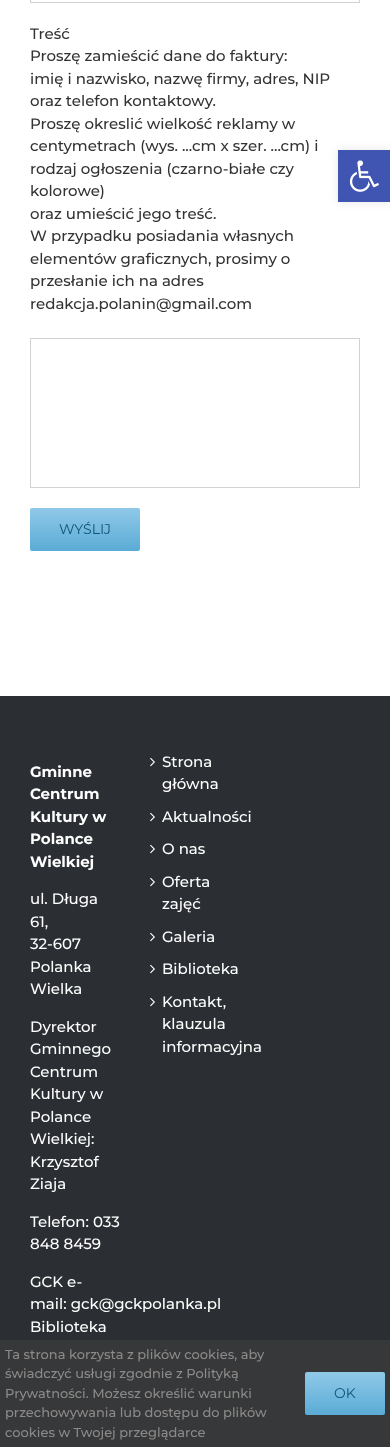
<svg xmlns="http://www.w3.org/2000/svg" width="390" height="1447">
<defs>
<linearGradient id="g1" gradientUnits="userSpaceOnUse" x1="85" y1="551" x2="85" y2="508"><stop offset="0" stop-color="#5aabd6"/><stop offset="1" stop-color="#90c9e8"/></linearGradient>
<linearGradient id="g2" gradientUnits="userSpaceOnUse" x1="345" y1="1415" x2="345" y2="1372"><stop offset="0" stop-color="#5aabd6"/><stop offset="1" stop-color="#90c9e8"/></linearGradient>
</defs>
<rect width="100%" height="100%" fill="#fff"/>
<rect x="30.5" y="-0.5" width="329" height="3" fill="none" stroke="#d2d2d2"/>
<text x="30" y="39" style="font-family:Montserrat;font-size:15px;font-weight:100;fill:#333">Treść</text>
<text x="30" y="61" style="font-family:Montserrat;font-size:15px;font-weight:100;fill:#333">Proszę zamieścić dane do faktury:</text>
<text x="30" y="84" style="font-family:Montserrat;font-size:15px;font-weight:100;fill:#333">imię i nazwisko, nazwę firmy, adres, NIP</text>
<text x="30" y="106" style="font-family:Montserrat;font-size:15px;font-weight:100;fill:#333">oraz telefon kontaktowy.</text>
<text x="30" y="129" style="font-family:Montserrat;font-size:15px;font-weight:100;fill:#333">Proszę okreslić wielkość reklamy w</text>
<text x="30" y="151" style="font-family:Montserrat;font-size:15px;font-weight:100;fill:#333">centymetrach (wys. ...cm x szer. ...cm) i</text>
<text x="30" y="174" style="font-family:Montserrat;font-size:15px;font-weight:100;fill:#333">rodzaj ogłoszenia (czarno-białe czy</text>
<text x="30" y="196" style="font-family:Montserrat;font-size:15px;font-weight:100;fill:#333">kolorowe)</text>
<text x="30" y="219" style="font-family:Montserrat;font-size:15px;font-weight:100;fill:#333">oraz umieścić jego treść.</text>
<text x="30" y="241" style="font-family:Montserrat;font-size:15px;font-weight:100;fill:#333">W przypadku posiadania własnych</text>
<text x="30" y="264" style="font-family:Montserrat;font-size:15px;font-weight:100;fill:#333">elementów graficznych, prosimy o</text>
<text x="30" y="286" style="font-family:Montserrat;font-size:15px;font-weight:100;fill:#333">przesłanie ich na adres</text>
<text x="30" y="309" style="font-family:Montserrat;font-size:15px;font-weight:100;fill:#333">redakcja.polanin@gmail.com</text>
<rect x="30.5" y="338.5" width="329" height="149" fill="none" stroke="#d2d2d2"/>
<rect x="30" y="508" width="110" height="43" rx="2" fill="url(#g1)"/>
<text x="59" y="534" style="font-family:'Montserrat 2';font-size:14px;font-weight:100;fill:#105378">WYŚLIJ</text>
<rect y="696" width="390" height="644" fill="#2b2e32"/>
<image x="150" y="757" width="5" height="10" href="media/1.png"/>
<text x="162" y="767" style="font-family:Montserrat;font-size:15px;font-weight:100;fill:#fff">Strona</text>
<text x="162" y="789" style="font-family:Montserrat;font-size:15px;font-weight:100;fill:#fff">główna</text>
<image x="150" y="812" width="5" height="10" href="media/1.png"/>
<text x="162" y="822" style="font-family:Montserrat;font-size:15px;font-weight:100;fill:#fff">Aktualności</text>
<image x="150" y="844" width="5" height="10" href="media/1.png"/>
<text x="162" y="854" style="font-family:Montserrat;font-size:15px;font-weight:100;fill:#fff">O nas</text>
<image x="150" y="877" width="5" height="10" href="media/1.png"/>
<text x="162" y="887" style="font-family:Montserrat;font-size:15px;font-weight:100;fill:#fff">Oferta</text>
<text x="162" y="909" style="font-family:Montserrat;font-size:15px;font-weight:100;fill:#fff">zajęć</text>
<image x="150" y="932" width="5" height="10" href="media/1.png"/>
<text x="162" y="942" style="font-family:Montserrat;font-size:15px;font-weight:100;fill:#fff">Galeria</text>
<image x="150" y="964" width="5" height="10" href="media/1.png"/>
<text x="162" y="974" style="font-family:Montserrat;font-size:15px;font-weight:100;fill:#fff">Biblioteka</text>
<image x="150" y="997" width="5" height="10" href="media/1.png"/>
<text x="162" y="1007" style="font-family:Montserrat;font-size:15px;font-weight:100;fill:#fff">Kontakt,</text>
<text x="162" y="1029" style="font-family:Montserrat;font-size:15px;font-weight:100;fill:#fff">klauzula</text>
<text x="162" y="1052" style="font-family:Montserrat;font-size:15px;font-weight:100;fill:#fff">informacyjna</text>
<text x="30" y="777" style="font-family:'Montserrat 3';font-size:15px;font-weight:100;fill:#fff">Gminne</text>
<text x="30" y="799" style="font-family:'Montserrat 3';font-size:15px;font-weight:100;fill:#fff">Centrum</text>
<text x="30" y="822" style="font-family:'Montserrat 3';font-size:15px;font-weight:100;fill:#fff">Kultury w</text>
<text x="30" y="844" style="font-family:'Montserrat 3';font-size:15px;font-weight:100;fill:#fff">Polance</text>
<text x="30" y="867" style="font-family:'Montserrat 3';font-size:15px;font-weight:100;fill:#fff">Wielkiej</text>
<text x="30" y="904" style="font-family:Montserrat;font-size:15px;font-weight:100;fill:#fff">ul. Długa</text>
<text x="30" y="927" style="font-family:Montserrat;font-size:15px;font-weight:100;fill:#fff">61,</text>
<text x="30" y="949" style="font-family:Montserrat;font-size:15px;font-weight:100;fill:#fff">32-607</text>
<text x="30" y="972" style="font-family:Montserrat;font-size:15px;font-weight:100;fill:#fff">Polanka</text>
<text x="30" y="994" style="font-family:Montserrat;font-size:15px;font-weight:100;fill:#fff">Wielka</text>
<text x="30" y="1032" style="font-family:Montserrat;font-size:15px;font-weight:100;fill:#fff">Dyrektor</text>
<text x="30" y="1054" style="font-family:Montserrat;font-size:15px;font-weight:100;fill:#fff">Gminnego</text>
<text x="30" y="1077" style="font-family:Montserrat;font-size:15px;font-weight:100;fill:#fff">Centrum</text>
<text x="30" y="1099" style="font-family:Montserrat;font-size:15px;font-weight:100;fill:#fff">Kultury w</text>
<text x="30" y="1122" style="font-family:Montserrat;font-size:15px;font-weight:100;fill:#fff">Polance</text>
<text x="30" y="1144" style="font-family:Montserrat;font-size:15px;font-weight:100;fill:#fff">Wielkiej:</text>
<text x="30" y="1167" style="font-family:Montserrat;font-size:15px;font-weight:100;fill:#fff">Krzysztof</text>
<text x="30" y="1189" style="font-family:Montserrat;font-size:15px;font-weight:100;fill:#fff">Ziaja</text>
<text x="30" y="1227" style="font-family:Montserrat;font-size:15px;font-weight:100;fill:#fff">Telefon: 033</text>
<text x="30" y="1249" style="font-family:Montserrat;font-size:15px;font-weight:100;fill:#fff">848 8459</text>
<text x="30" y="1287" style="font-family:Montserrat;font-size:15px;font-weight:100;fill:#fff">GCK e-</text>
<text x="30" y="1309" style="font-family:Montserrat;font-size:15px;font-weight:100;fill:#fff">mail: gck@gckpolanka.pl</text>
<text x="30" y="1332" style="font-family:Montserrat;font-size:15px;font-weight:100;fill:#fff">Biblioteka</text>
<rect x="338" y="150" width="52" height="52" fill="#0000001a" filter="blur(5px)"/>
<rect x="338" y="150" width="52" height="52" fill="#4054b2"/>
<image x="349" y="160" width="30" height="32" href="media/2.png"/>
<rect y="1340" width="390" height="107" fill="#363839"/>
<text x="5" y="1359" style="font-family:Montserrat;font-size:13px;font-weight:100;fill:#8c8989">Ta strona korzysta z plików cookies, aby</text>
<text x="5" y="1378" style="font-family:Montserrat;font-size:13px;font-weight:100;fill:#8c8989">świadczyć usługi zgodnie z Polityką</text>
<text x="5" y="1398" style="font-family:Montserrat;font-size:13px;font-weight:100;fill:#8c8989">Prywatności. Możesz określić warunki</text>
<text x="5" y="1417" style="font-family:Montserrat;font-size:13px;font-weight:100;fill:#8c8989">przechowywania lub dostępu do plików</text>
<text x="5" y="1437" style="font-family:Montserrat;font-size:13px;font-weight:100;fill:#8c8989">cookies w Twojej przeglądarce</text>
<rect x="305" y="1372" width="80" height="43" rx="2" fill="url(#g2)"/>
<text x="334" y="1398" style="font-family:'Montserrat 2';font-size:14px;font-weight:100;fill:#105378">OK</text>
</svg>
